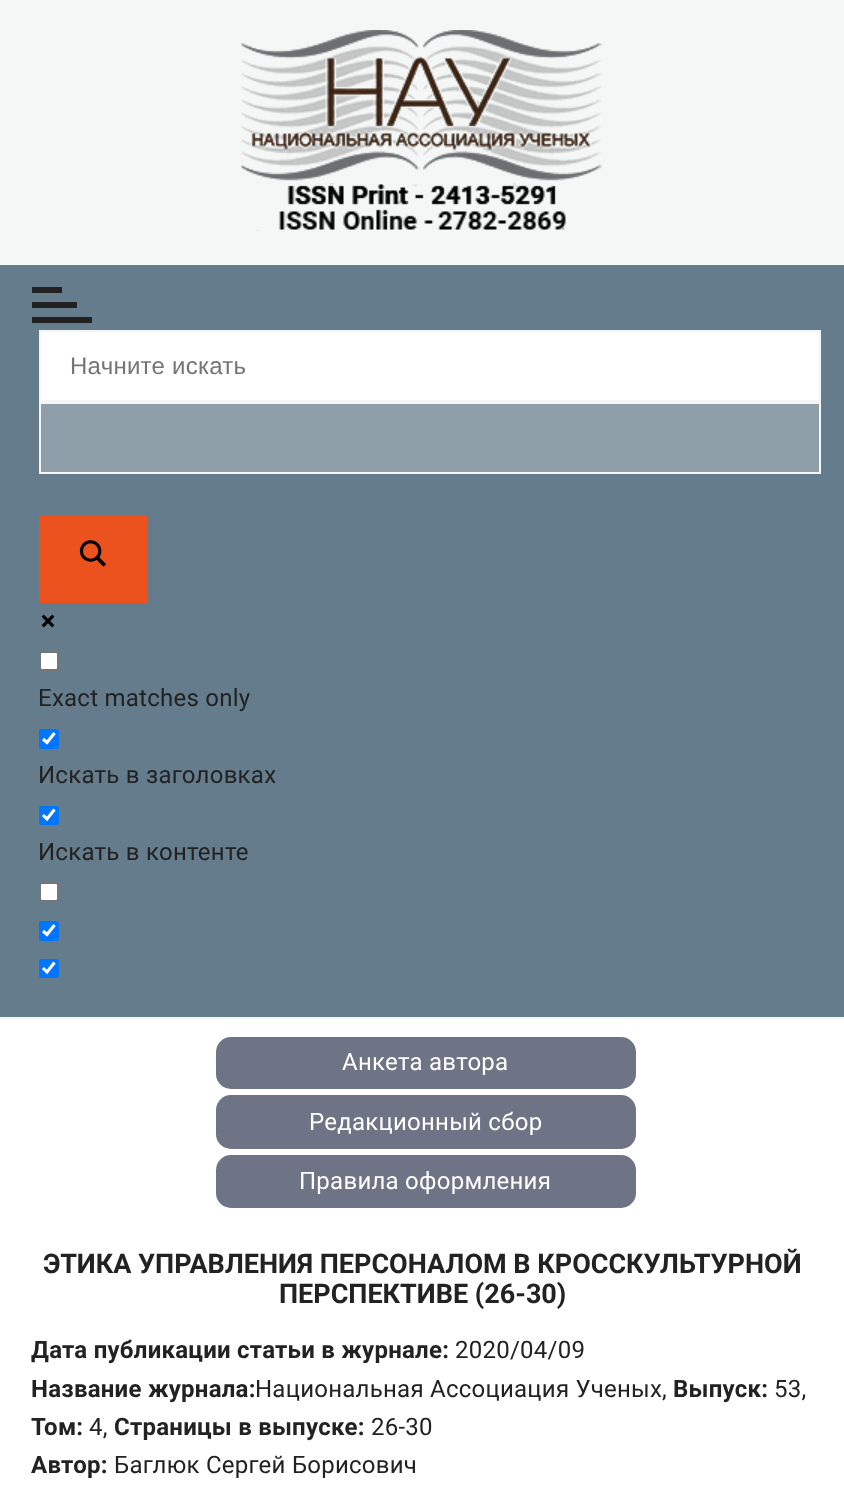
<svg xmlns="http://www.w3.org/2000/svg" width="844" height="1492">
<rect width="100%" height="100%" fill="#fff"/>
<rect width="844" height="263" fill="#f4f7f6"/>
<image x="241" y="30" width="361" height="201" href="media/1.png"/>
<rect y="265" width="844" height="752" fill="#647c8c"/>
<rect y="263" width="844" height="2" fill="#f5f5f5"/>
<rect y="1017" width="844" height="2" fill="#f5f5f5"/>
<rect x="32" y="287" width="30" height="6" fill="#222"/>
<rect x="32" y="302" width="45" height="6" fill="#222"/>
<rect x="32" y="317" width="60" height="6" fill="#222"/>
<rect x="40" y="331" width="780" height="70" fill="#fff" stroke="#f5f5f5" stroke-width="2"/>
<text x="70" y="374" style="font-family:Liberation Sans;font-size:24px;letter-spacing:0.25px;fill:#757575">Начните искать</text>
<rect x="40" y="403" width="780" height="70" fill="#8e9faa" stroke="#f5f5f5" stroke-width="2"/>
<rect x="39" y="516" width="108" height="87" fill="#ec521e"/>
<image x="79" y="540" width="28" height="27" href="media/2.png"/>
<image x="41" y="614" width="14" height="14" href="media/3.png"/>
<rect x="40" y="652" width="18" height="18" rx="2" fill="#fff" stroke="#767676" stroke-width="2"/>
<text x="38" y="706" style="font-family:Roboto;font-size:24px;letter-spacing:0.25px;fill:#222">Exact matches only</text>
<rect x="39" y="729" width="20" height="20" rx="3" fill="#0075ff"/>
<path d="M43 739l4 3.5l7.5-9.5" fill="none" stroke="#fff" stroke-width="3.1"/>
<text x="38" y="783" style="font-family:Roboto;font-size:24px;letter-spacing:0.25px;fill:#222">Искать в заголовках</text>
<rect x="39" y="806" width="20" height="19" rx="3" fill="#0075ff"/>
<path d="M43 815l4 4l7.5-9.5" fill="none" stroke="#fff" stroke-width="3.1"/>
<text x="38" y="860" style="font-family:Roboto;font-size:24px;letter-spacing:0.25px;fill:#222">Искать в контенте</text>
<rect x="40" y="883" width="18" height="18" rx="2" fill="#fff" stroke="#767676" stroke-width="2"/>
<rect x="39" y="921" width="20" height="20" rx="3" fill="#0075ff"/>
<path d="M43 931l4 3.5l7.5-9.5" fill="none" stroke="#fff" stroke-width="3.1"/>
<rect x="39" y="959" width="20" height="19" rx="3" fill="#0075ff"/>
<path d="M43 968l4 4l7.5-9.5" fill="none" stroke="#fff" stroke-width="3.1"/>
<rect x="216" y="1037" width="420" height="52" rx="15" fill="#6e7385"/>
<text x="342" y="1070" style="font-family:Roboto;font-size:24px;letter-spacing:0.25px;fill:#fff">Анкета автора</text>
<rect x="216" y="1095" width="420" height="54" rx="15" fill="#6e7385"/>
<text x="309" y="1130" style="font-family:Roboto;font-size:24px;letter-spacing:0.25px;fill:#fff">Редакционный сбор</text>
<rect x="216" y="1155" width="420" height="53" rx="15" fill="#6e7385"/>
<text x="299" y="1189" style="font-family:Roboto;font-size:24px;letter-spacing:0.25px;fill:#fff">Правила оформления</text>
<text x="43" y="1273" style="font-family:Roboto;font-size:27px;font-weight:bold;fill:#222">ЭТИКА УПРАВЛЕНИЯ ПЕРСОНАЛОМ В КРОССКУЛЬТУРНОЙ</text>
<text x="279" y="1303" style="font-family:Roboto;font-size:27px;font-weight:bold;fill:#222">ПЕРСПЕКТИВЕ (26-30)</text>
<text x="31" y="1358" style="font-family:Roboto;font-size:24px;font-weight:bold;letter-spacing:0.25px;fill:#222">Дата публикации статьи в журнале:</text>
<text x="455" y="1358" style="font-family:Roboto;font-size:24px;letter-spacing:0.25px;fill:#222">2020/04/09</text>
<text x="31" y="1397" style="font-family:Roboto;font-size:24px;font-weight:bold;letter-spacing:0.25px;fill:#222">Название журнала:</text>
<text x="255" y="1397" style="font-family:Roboto;font-size:24px;letter-spacing:0.25px;fill:#222">Национальная Ассоциация Ученых,</text>
<text x="673" y="1397" style="font-family:Roboto;font-size:24px;font-weight:bold;letter-spacing:0.25px;fill:#222">Выпуск:</text>
<text x="774" y="1397" style="font-family:Roboto;font-size:24px;letter-spacing:0.25px;fill:#222">53,</text>
<text x="31" y="1435" style="font-family:Roboto;font-size:24px;font-weight:bold;letter-spacing:0.25px;fill:#222">Том:</text>
<text x="89" y="1435" style="font-family:Roboto;font-size:24px;letter-spacing:0.25px;fill:#222">4,</text>
<text x="114" y="1435" style="font-family:Roboto;font-size:24px;font-weight:bold;letter-spacing:0.25px;fill:#222">Страницы в выпуске:</text>
<text x="371" y="1435" style="font-family:Roboto;font-size:24px;letter-spacing:0.25px;fill:#222">26-30</text>
<text x="31" y="1473" style="font-family:Roboto;font-size:24px;font-weight:bold;letter-spacing:0.25px;fill:#222">Автор:</text>
<text x="114" y="1473" style="font-family:Roboto;font-size:24px;letter-spacing:0.25px;fill:#222">Баглюк Сергей Борисович</text>
</svg>
